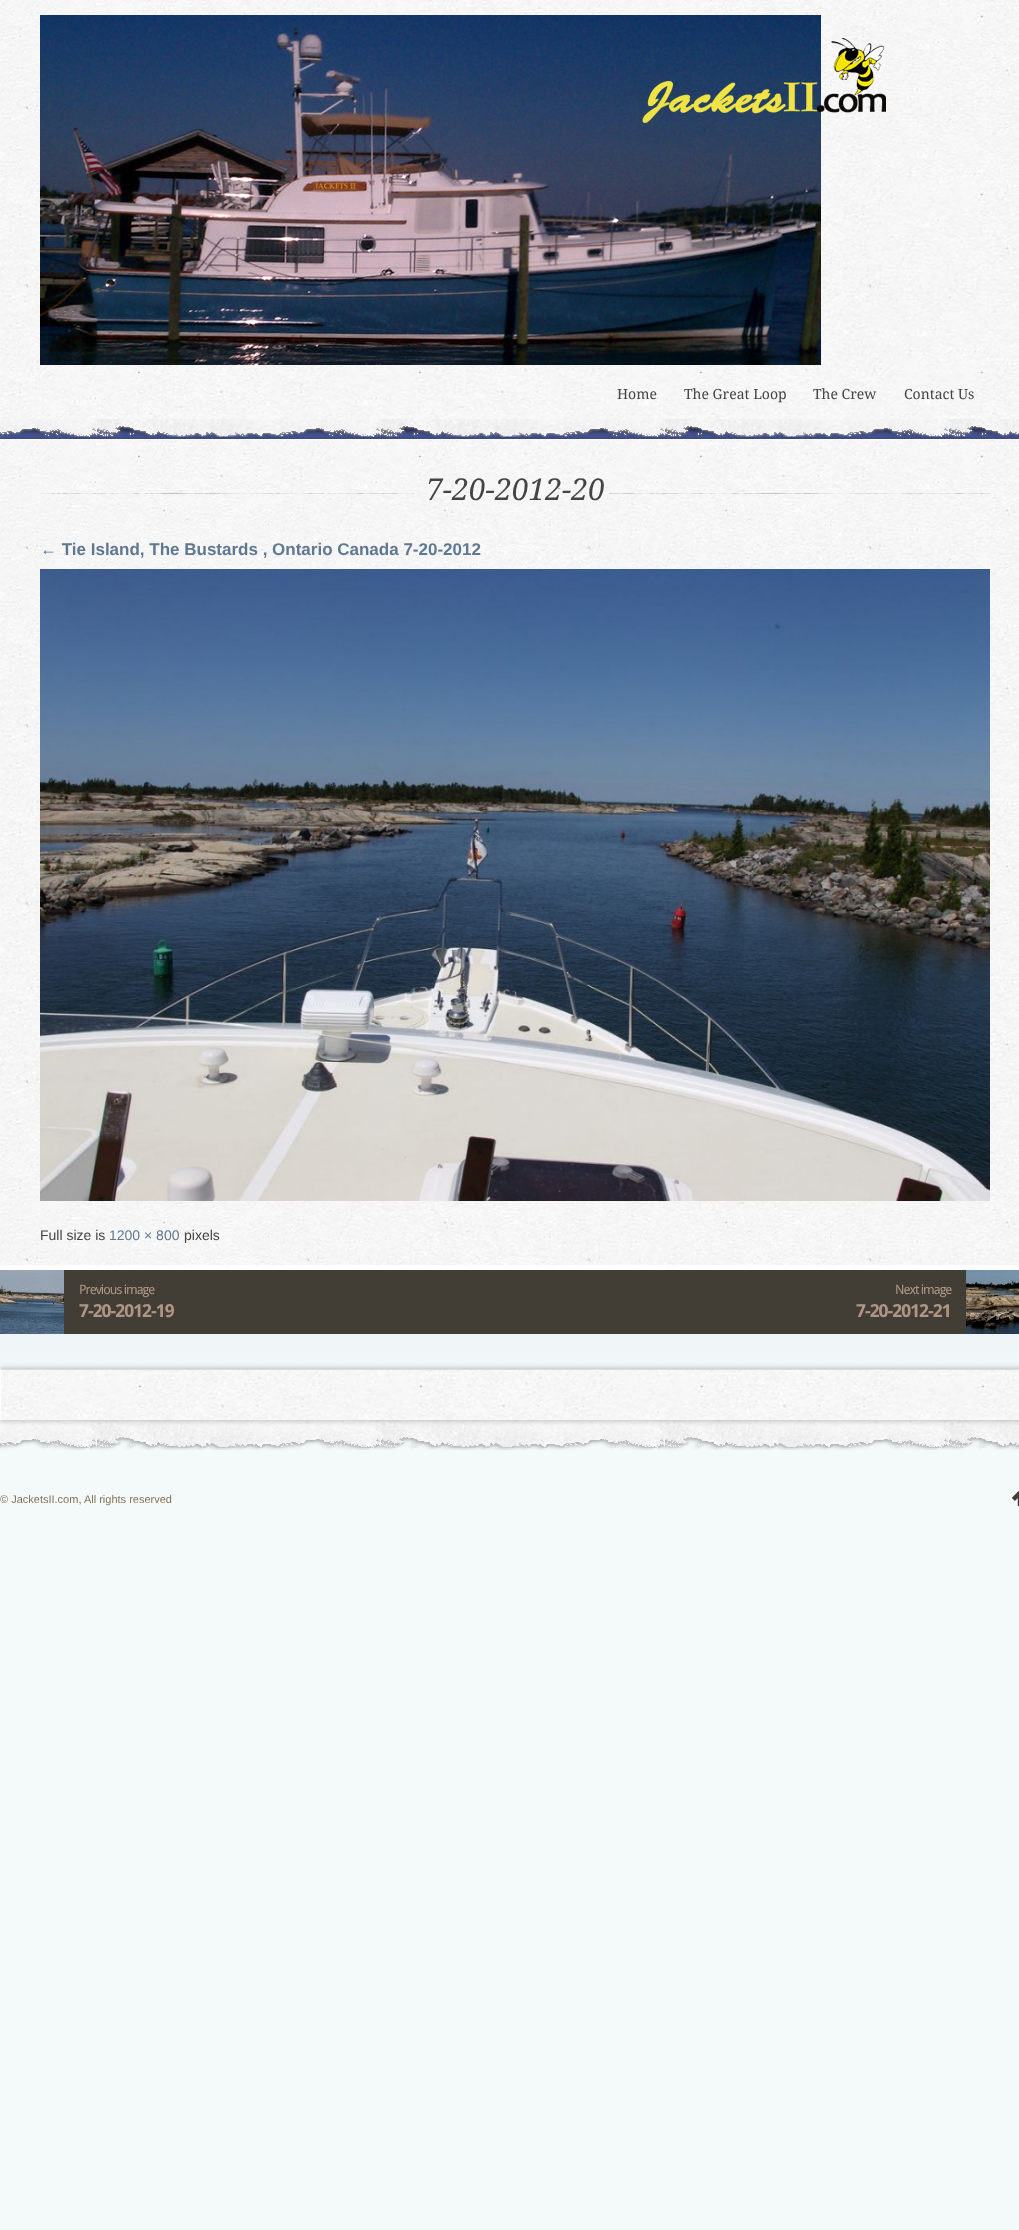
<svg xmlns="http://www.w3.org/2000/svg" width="1019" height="2230">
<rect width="100%" height="100%" fill="#fff"/>
<image x="0" y="426" width="1019" height="1804" href="media/1.png"/>
<rect y="439" width="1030" height="831" fill="#0000004d" filter="blur(3.5px)"/>
<rect y="439" width="1019" height="1" fill="#fff"/>
<rect y="12" width="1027" height="419" fill="#00000099" filter="blur(2.5px)"/>
<image x="0" y="0" width="1019" height="419" href="media/2.png"/>
<image x="40" y="15" width="846" height="350" href="media/3.png"/>
<text x="617" y="399" style="font-family:Droid Serif;font-size:14px;fill:#444">Home</text>
<text x="684" y="399" style="font-family:Droid Serif;font-size:14px;fill:#444">The Great Loop</text>
<text x="813" y="399" style="font-family:Droid Serif;font-size:14px;fill:#444">The Crew</text>
<text x="904" y="399" style="font-family:Droid Serif;font-size:14px;fill:#444">Contact Us</text>
<image x="0" y="419" width="1019" height="20" href="media/4.png"/>
<image x="0" y="440" width="1019" height="825" href="media/5.png"/>
<rect y="1265" width="1019" height="5" fill="#fff"/>
<image x="40" y="493" width="950" height="1" href="media/6.png"/>
<image x="421" y="472" width="188" height="35" href="media/7.png"/>
<text x="426" y="500" style="font-family:Droid Serif;font-size:30px;font-style:italic;fill:#444">7-20-2012-20</text>
<text x="40" y="555" style="font-family:Liberation Sans;font-size:17px;font-weight:bold;fill:#607890">← Tie Island, The Bustards , Ontario Canada 7-20-2012</text>
<image x="40" y="569" width="950" height="632" href="media/8.png"/>
<text x="40" y="1240" style="font-family:Liberation Sans;font-size:14px;fill:#444">Full size is</text>
<text x="109" y="1240" style="font-family:Liberation Sans;font-size:14px;fill:#607890">1200 × 800</text>
<text x="184" y="1240" style="font-family:Liberation Sans;font-size:14px;fill:#444">pixels</text>
<rect x="64" y="1270" width="902" height="64" fill="#423e35"/>
<image x="0" y="1270" width="64" height="64" href="media/9.png"/>
<text x="79" y="1294" style="font-family:Droid Sans;font-size:13px;letter-spacing:-1px;fill:#af9585">Previous image</text>
<text x="79" y="1317" style="font-family:Droid Sans;font-size:18px;font-weight:bold;letter-spacing:-1px;fill:#af9585">7-20-2012-19</text>
<text x="895" y="1294" style="font-family:Droid Sans;font-size:13px;letter-spacing:-1px;fill:#af9585">Next image</text>
<text x="856" y="1317" style="font-family:Droid Sans;font-size:18px;font-weight:bold;letter-spacing:-1px;fill:#af9585">7-20-2012-21</text>
<image x="966" y="1270" width="53" height="64" href="media/10.png"/>
<image x="0" y="1420" width="1019" height="30" href="media/12.png"/>
<rect y="1369" width="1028" height="51" fill="#0000004d" filter="blur(3px)"/>
<image x="1" y="1370" width="1018" height="50" href="media/11.png"/>
<rect y="1369" width="1019" height="1" fill="#ddd"/>
<rect y="1369" width="1" height="51" fill="#fff"/>
<text x="0" y="1503" style="font-family:Liberation Sans;font-size:11px;fill:#867158">© JacketsII.com, All rights reserved</text>
<image x="1012" y="1490" width="7" height="16" href="media/13.png"/>
</svg>
